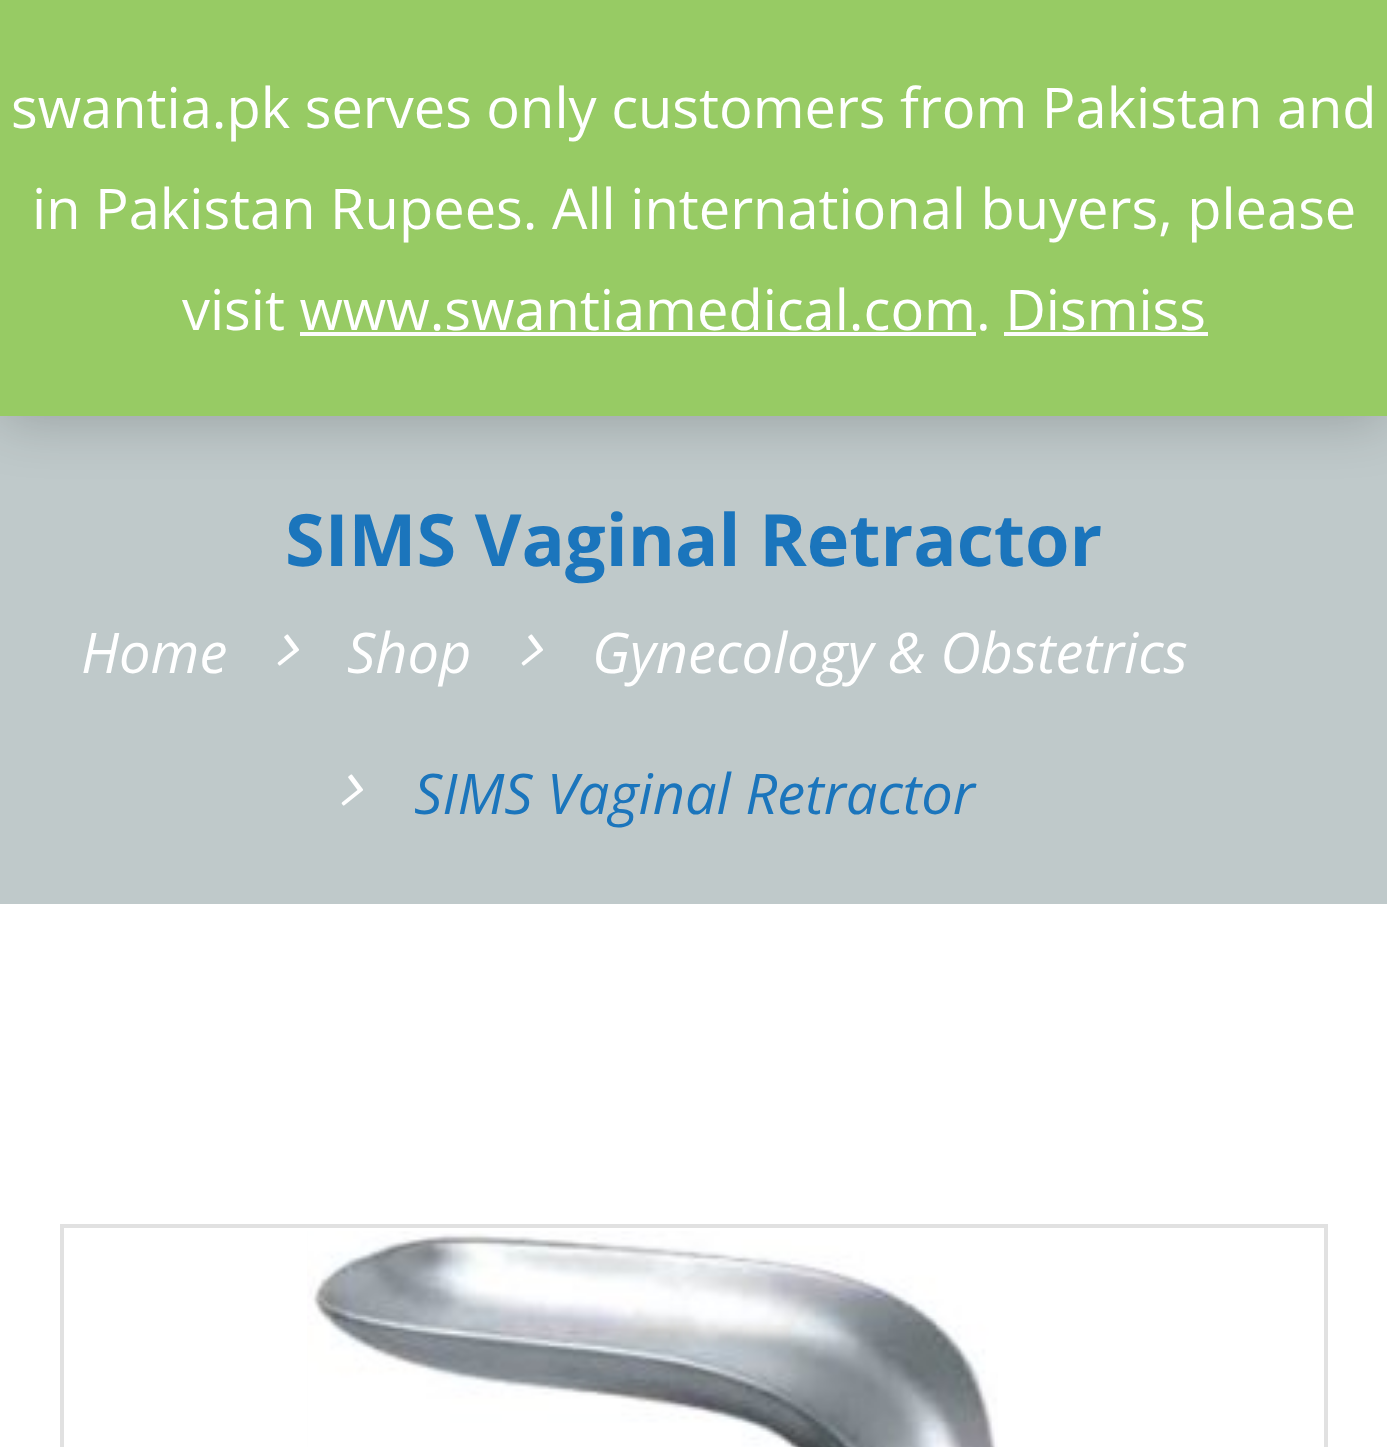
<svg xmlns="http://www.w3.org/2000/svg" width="1387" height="1447">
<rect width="100%" height="100%" fill="#fff"/>
<rect y="416" width="1387" height="488" fill="#bfc9ca"/>
<rect y="4" width="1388" height="416" fill="#00000033" filter="blur(28px)"/>
<rect width="1387" height="416" fill="#97cb64"/>
<text x="11" y="128" style="font-family:Open Sans;font-size:56px;fill:#fff">swantia.pk serves only customers from Pakistan and</text>
<text x="32" y="229" style="font-family:Open Sans;font-size:56px;fill:#fff">in Pakistan Rupees. All international buyers, please</text>
<text x="182" y="330" style="font-family:Open Sans;font-size:56px;fill:#fff">visit www.swantiamedical.com. Dismiss</text>
<rect x="300" y="332" width="676" height="4" fill="#fcfbfe"/>
<rect x="1004" y="332" width="204" height="4" fill="#fcfbfe"/>
<text x="285" y="566" style="font-family:Open Sans;font-size:72px;font-weight:bold;fill:#1b75bc">SIMS Vaginal Retractor</text>
<text x="81" y="673" style="font-family:Open Sans;font-size:56px;font-style:italic;fill:#fff">Home</text>
<image x="277" y="634" width="22" height="32" href="media/1.png"/>
<text x="347" y="673" style="font-family:Open Sans;font-size:56px;font-style:italic;fill:#fff">Shop</text>
<image x="521" y="634" width="22" height="32" href="media/1.png"/>
<text x="592" y="673" style="font-family:Open Sans;font-size:56px;font-style:italic;fill:#fff">Gynecology &amp; Obstetrics</text>
<image x="341" y="774" width="22" height="32" href="media/1.png"/>
<text x="414" y="814" style="font-family:Open Sans;font-size:56px;font-style:italic;fill:#1b75bc">SIMS Vaginal Retractor</text>
<rect x="62" y="1226" width="1264" height="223" fill="none" stroke="#e1e1e1" stroke-width="4"/>
<image x="307" y="1231" width="691" height="216" href="media/2.png"/>
</svg>
